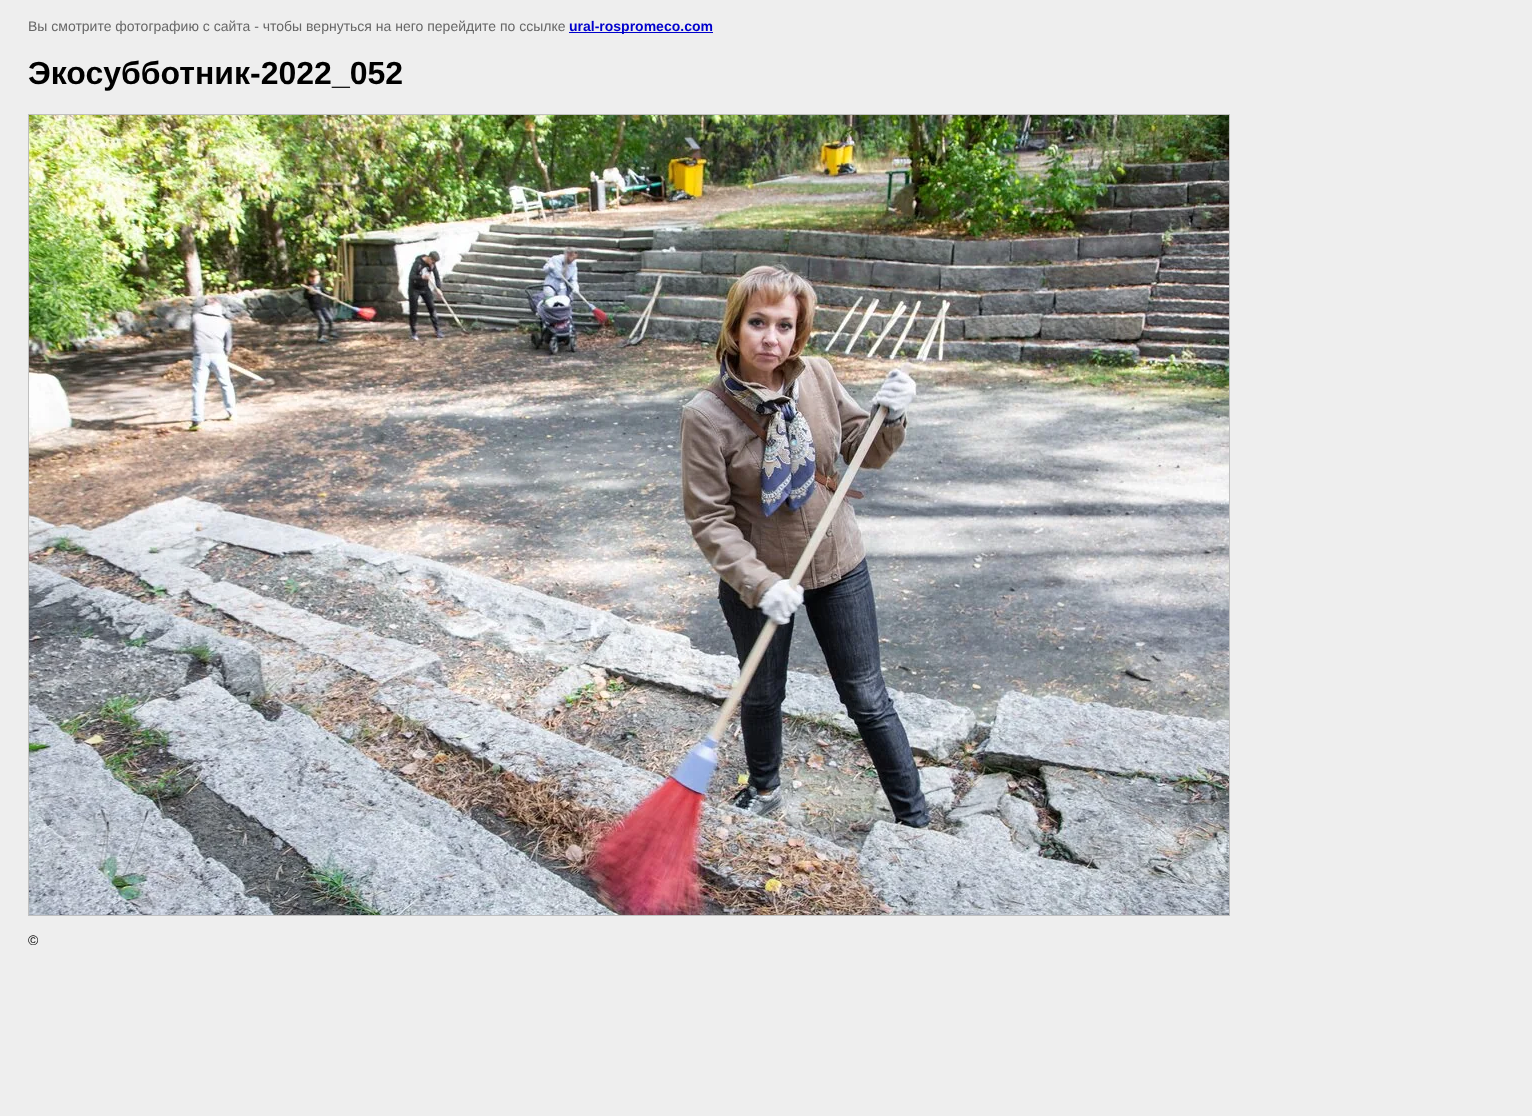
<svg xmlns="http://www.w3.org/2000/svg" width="1532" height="1116">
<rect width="100%" height="100%" fill="#eee"/>
<text x="28" y="31" style="font-family:Liberation Sans;font-size:14px;fill:#666">Вы смотрите фотографию с сайта - чтобы вернуться на него перейдите по ссылке</text>
<rect x="569" y="32" width="144" height="1" fill="#00c"/>
<text x="569" y="31" style="font-family:Liberation Sans;font-size:14px;font-weight:bold;fill:#00c">ural-rospromeco.com</text>
<text x="28" y="84" style="font-family:Liberation Sans;font-size:32px;font-weight:bold;fill:#000">Экосубботник-2022_052</text>
<rect x="28.5" y="114.5" width="1201" height="801" fill="none" stroke="#c0c0c0"/>
<image x="29" y="115" width="1200" height="800" href="media/1.png"/>
<text x="28" y="945" style="font-family:Liberation Sans;font-size:14px;fill:#000">©</text>
</svg>
